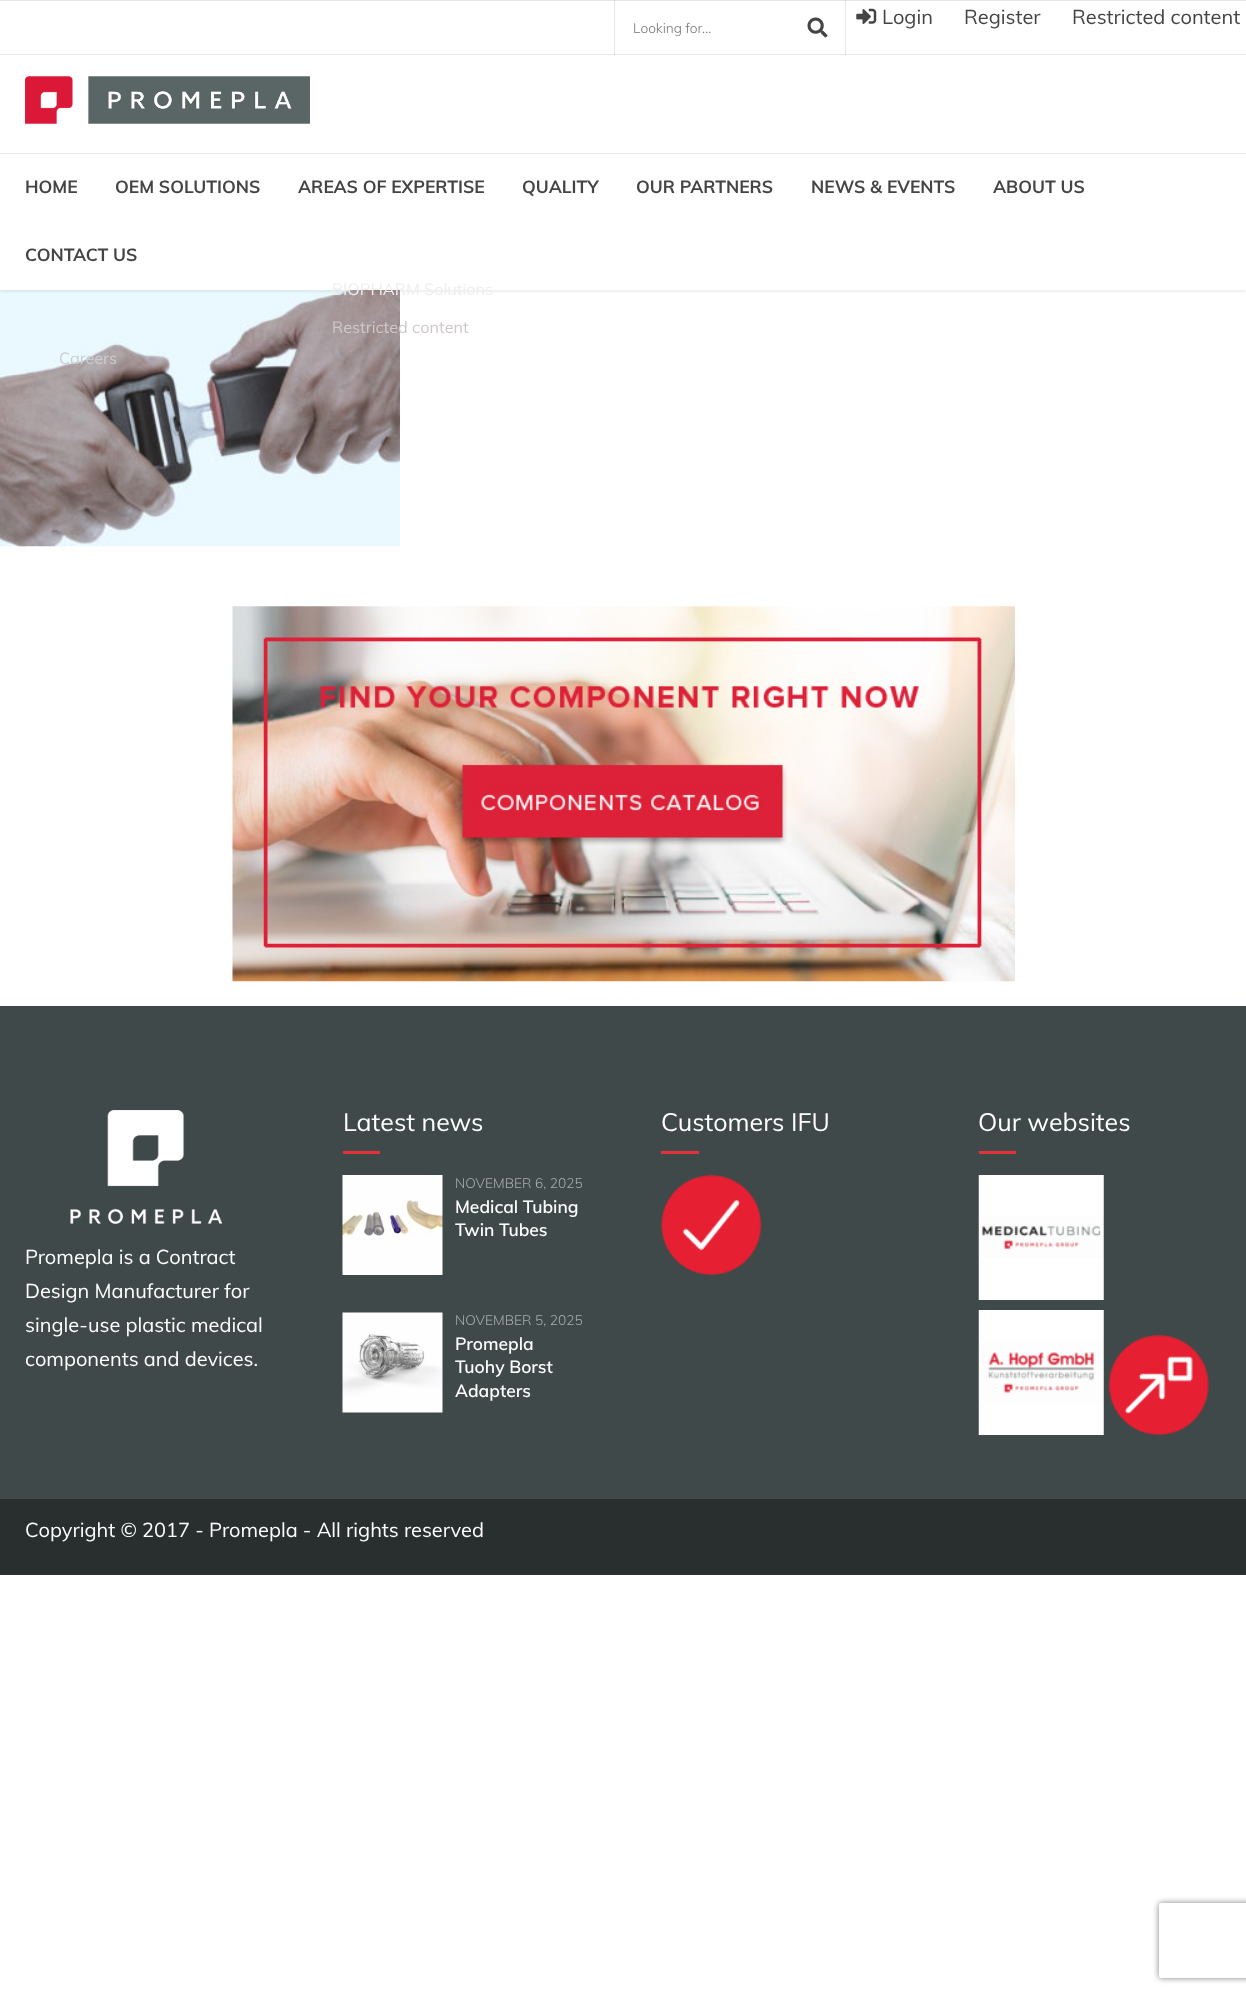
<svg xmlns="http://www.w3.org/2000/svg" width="1246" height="1994">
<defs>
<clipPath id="clip1"><rect x="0" y="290" width="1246" height="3"/></clipPath>
<clipPath id="clip2"><path d="M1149 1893h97v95h-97zm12.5 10h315c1.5 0 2.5 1 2.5 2.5v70c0 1.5-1 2.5-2.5 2.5h-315c-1.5 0-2.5-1-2.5-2.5v-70c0-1.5 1-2.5 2.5-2.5z" clip-rule="evenodd"/></clipPath>
</defs>
<rect width="100%" height="100%" fill="#fff"/>
<rect y="54" width="1246" height="1" fill="#e6e6e6"/>
<rect x="614" width="1" height="55" fill="#e6e6e6"/>
<rect x="614" y="54" width="1" height="1" fill="#cfcfcf"/>
<rect x="845" width="1" height="55" fill="#e6e6e6"/>
<rect x="845" y="54" width="1" height="1" fill="#cfcfcf"/>
<image x="0" y="290" width="400" height="257" href="media/4.png"/>
<g clip-path="url(#clip1)">
<rect y="1" width="1246" height="290" fill="#0000001a" filter="blur(2px)"/>
</g>
<rect width="1246" height="1" fill="#e6e6e6"/>
<rect x="614" width="1" height="1" fill="#cfcfcf"/>
<rect x="845" width="1" height="1" fill="#cfcfcf"/>
<text x="633" y="33" style="font-family:Muli;font-size:13.75px;font-weight:300;fill:#757575">Looking for...</text>
<image x="807" y="17" width="21" height="21" href="media/1.png"/>
<image x="856" y="8" width="21" height="16" href="media/2.png"/>
<text x="882" y="24" style="font-family:Muli;font-size:20px;fill:#444">Login</text>
<text x="964" y="24" style="font-family:Muli;font-size:20px;fill:#444">Register</text>
<text x="1072" y="24" style="font-family:Muli;font-size:20px;fill:#444">Restricted content</text>
<image x="25" y="76" width="285" height="48" href="media/3.png"/>
<rect y="153" width="1246" height="1" fill="#e6e6e6"/>
<text x="25" y="193" style="font-family:Muli;font-size:17.5px;font-weight:bold;fill:#444">HOME</text>
<text x="115" y="193" style="font-family:Muli;font-size:17.5px;font-weight:bold;fill:#444">OEM SOLUTIONS</text>
<text x="298" y="193" style="font-family:Muli;font-size:17.5px;font-weight:bold;fill:#444">AREAS OF EXPERTISE</text>
<text x="332" y="295" style="font-family:Muli;font-size:16.25px;fill:#efedee">BIOPHARM Solutions</text>
<text x="332" y="333" style="font-family:Muli;font-size:16.25px;fill:#cfc8c9">Restricted content</text>
<text x="522" y="193" style="font-family:Muli;font-size:17.5px;font-weight:bold;fill:#444">QUALITY</text>
<text x="636" y="193" style="font-family:Muli;font-size:17.5px;font-weight:bold;fill:#444">OUR PARTNERS</text>
<text x="811" y="193" style="font-family:Muli;font-size:17.5px;font-weight:bold;fill:#444">NEWS &amp; EVENTS</text>
<text x="993" y="193" style="font-family:Muli;font-size:17.5px;font-weight:bold;fill:#444">ABOUT US</text>
<text x="25" y="261" style="font-family:Muli;font-size:17.5px;font-weight:bold;fill:#444">CONTACT US</text>
<text x="59" y="364" style="font-family:Muli;font-size:16.25px;fill:#cacdd1">Careers</text>
<image x="232" y="606" width="783" height="376" href="media/5.png"/>
<rect y="1006" width="1246" height="493" fill="#40494a"/>
<text x="343" y="1131" style="font-family:Muli;font-size:25px;fill:#fff">Latest news</text>
<rect x="343" y="1151" width="37" height="3" fill="#e53138"/>
<image x="342" y="1175" width="101" height="100" href="media/6.png"/>
<text x="455" y="1188" style="font-family:Muli;font-size:13.75px;font-weight:300;fill:#a9adae">NOVEMBER 6, 2025</text>
<text x="455" y="1213" style="font-family:Muli;font-size:17.5px;font-weight:600;fill:#fff">Medical Tubing</text>
<text x="455" y="1236" style="font-family:Muli;font-size:17.5px;font-weight:600;fill:#fff">Twin Tubes</text>
<image x="342" y="1312" width="101" height="101" href="media/7.png"/>
<text x="455" y="1325" style="font-family:Muli;font-size:13.75px;font-weight:300;fill:#a9adae">NOVEMBER 5, 2025</text>
<text x="455" y="1350" style="font-family:Muli;font-size:17.5px;font-weight:600;fill:#fff">Promepla</text>
<text x="455" y="1373" style="font-family:Muli;font-size:17.5px;font-weight:600;fill:#fff">Tuohy Borst</text>
<text x="455" y="1397" style="font-family:Muli;font-size:17.5px;font-weight:600;fill:#fff">Adapters</text>
<text x="661" y="1131" style="font-family:Muli;font-size:25px;fill:#fff">Customers IFU</text>
<rect x="661" y="1151" width="38" height="3" fill="#e53138"/>
<image x="661" y="1175" width="101" height="100" href="media/8.png"/>
<text x="978" y="1131" style="font-family:Muli;font-size:25px;fill:#fff">Our websites</text>
<rect x="979" y="1151" width="37" height="3" fill="#e53138"/>
<image x="978" y="1175" width="126" height="125" href="media/9.png"/>
<image x="978" y="1310" width="126" height="125" href="media/10.png"/>
<image x="1108" y="1335" width="101" height="100" href="media/11.png"/>
<image x="70" y="1110" width="152" height="114" href="media/12.png"/>
<text x="25" y="1264" style="font-family:Muli;font-size:20px;fill:#fff">Promepla is a Contract</text>
<text x="25" y="1298" style="font-family:Muli;font-size:20px;fill:#fff">Design Manufacturer for</text>
<text x="25" y="1332" style="font-family:Muli;font-size:20px;fill:#fff">single-use plastic medical</text>
<text x="25" y="1366" style="font-family:Muli;font-size:20px;fill:#fff">components and devices.</text>
<rect y="1499" width="1246" height="76" fill="#292f2f"/>
<text x="25" y="1537" style="font-family:Muli;font-size:20px;fill:#fff">Copyright © 2017 - Promepla - All rights reserved</text>
<g clip-path="url(#clip2)">
<rect x="1159" y="1903" width="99" height="75" rx="2.5" fill="#808080" filter="blur(3px)"/>
</g>
</svg>
